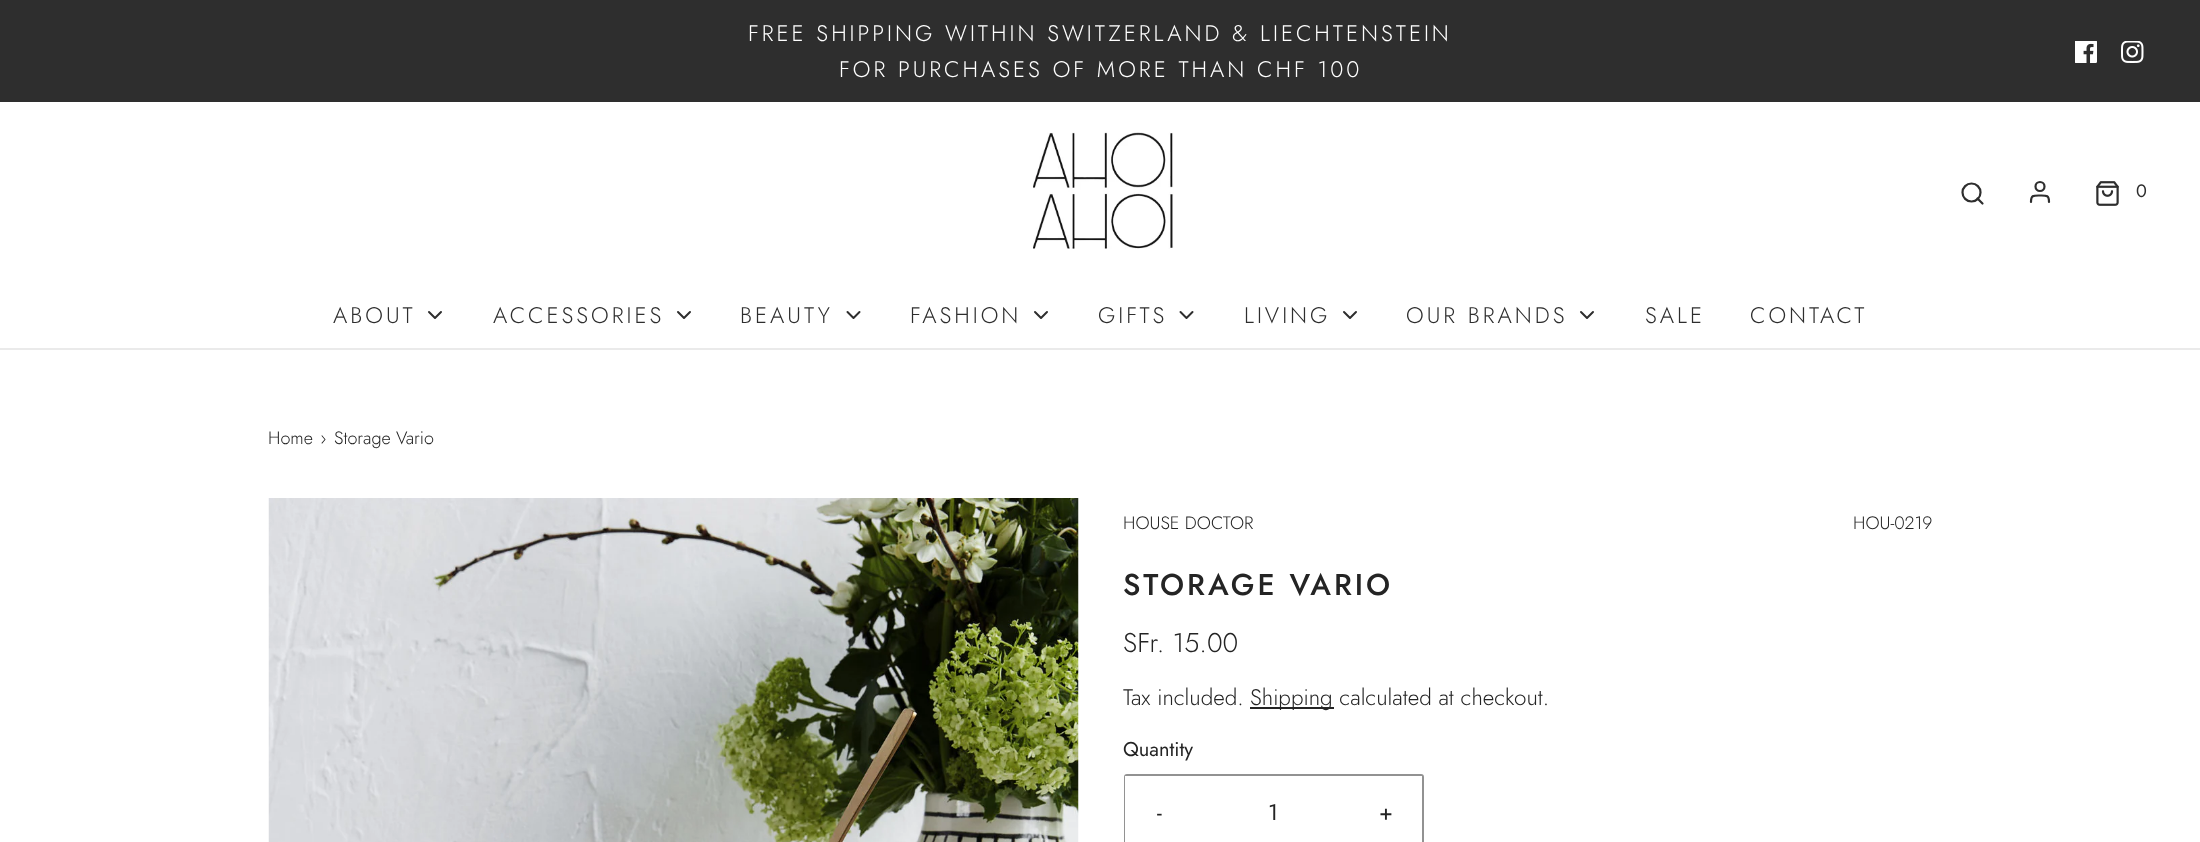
<svg xmlns="http://www.w3.org/2000/svg" width="2200" height="842">
<rect width="100%" height="100%" fill="#fff"/>
<rect width="2200" height="102" fill="#2e2e2e"/>
<text x="748" y="41" style="font-family:Jost;font-size:22.5px;font-weight:300;letter-spacing:3px;fill:#fff">FREE SHIPPING WITHIN SWITZERLAND &amp; LIECHTENSTEIN</text>
<text x="839" y="77" style="font-family:Jost;font-size:22.5px;font-weight:300;letter-spacing:3px;fill:#fff">FOR PURCHASES OF MORE THAN CHF 100</text>
<image x="2075" y="41" width="22" height="22" href="media/1.png"/>
<image x="2121" y="41" width="23" height="22" href="media/2.png"/>
<rect y="348" width="2200" height="2" fill="#eaeaea"/>
<image x="1033" y="132" width="141" height="117" href="media/3.png"/>
<circle cx="1971.5" cy="192.5" r="9" fill="none" stroke="#2e2e2e" stroke-width="2.2"/>
<path d="M1982.5 203.5l-5-5" fill="none" stroke="#2e2e2e" stroke-width="2.2" stroke-linecap="round" stroke-linejoin="round"/>
<path d="M2049 202c0-7-2.5-6.5-9-6.5c-6.5 0-9-.5-9 6.5" fill="none" stroke="#2e2e2e" stroke-width="2.2" stroke-linecap="round" stroke-linejoin="round"/>
<circle cx="2040" cy="186.5" r="4.5" fill="none" stroke="#2e2e2e" stroke-width="2.2"/>
<image x="2096" y="181" width="23" height="25" href="media/4.png"/>
<text x="2136" y="197" style="font-family:Jost;font-size:18px;fill:#2e2e2e">0</text>
<text x="333" y="323" style="font-family:Jost;font-size:22.5px;font-weight:300;letter-spacing:3px;fill:#2e2e2e">ABOUT</text>
<path d="M429 312l6 6l6-6" fill="none" stroke="#2e2e2e" stroke-width="2" stroke-linecap="round" stroke-linejoin="round"/>
<text x="493" y="323" style="font-family:Jost;font-size:22.5px;font-weight:300;letter-spacing:3px;fill:#2e2e2e">ACCESSORIES</text>
<path d="M678 312l6 6l6-6" fill="none" stroke="#2e2e2e" stroke-width="2" stroke-linecap="round" stroke-linejoin="round"/>
<text x="740" y="323" style="font-family:Jost;font-size:22.5px;font-weight:300;letter-spacing:3px;fill:#2e2e2e">BEAUTY</text>
<path d="M847.5 312l6 6l6-6" fill="none" stroke="#2e2e2e" stroke-width="2" stroke-linecap="round" stroke-linejoin="round"/>
<text x="910" y="323" style="font-family:Jost;font-size:22.5px;font-weight:300;letter-spacing:3px;fill:#2e2e2e">FASHION</text>
<path d="M1035 312l6 6l6-6" fill="none" stroke="#2e2e2e" stroke-width="2" stroke-linecap="round" stroke-linejoin="round"/>
<text x="1098" y="323" style="font-family:Jost;font-size:22.5px;font-weight:300;letter-spacing:3px;fill:#2e2e2e">GIFTS</text>
<path d="M1180.5 312l6 6l6-6" fill="none" stroke="#2e2e2e" stroke-width="2" stroke-linecap="round" stroke-linejoin="round"/>
<text x="1244" y="323" style="font-family:Jost;font-size:22.5px;font-weight:300;letter-spacing:3px;fill:#2e2e2e">LIVING</text>
<path d="M1344 312l6 6l6-6" fill="none" stroke="#2e2e2e" stroke-width="2" stroke-linecap="round" stroke-linejoin="round"/>
<text x="1406" y="323" style="font-family:Jost;font-size:22.5px;font-weight:300;letter-spacing:3px;fill:#2e2e2e">OUR BRANDS</text>
<path d="M1581 312l6 6l6-6" fill="none" stroke="#2e2e2e" stroke-width="2" stroke-linecap="round" stroke-linejoin="round"/>
<text x="1645" y="323" style="font-family:Jost;font-size:22.5px;font-weight:300;letter-spacing:3px;fill:#2e2e2e">SALE</text>
<text x="1750" y="323" style="font-family:Jost;font-size:22.5px;font-weight:300;letter-spacing:3px;fill:#2e2e2e">CONTACT</text>
<text x="268" y="444" style="font-family:Jost;font-size:18px;font-weight:300;fill:#242424">Home</text>
<text x="320" y="444" style="font-family:Jost;font-size:18px;font-weight:300;fill:#242424">›</text>
<text x="334" y="444" style="font-family:Jost;font-size:18px;font-weight:300;fill:#242424">Storage Vario</text>
<image x="268" y="498" width="811" height="344" href="media/5.png"/>
<text x="1123" y="529" style="font-family:Jost;font-size:18px;font-weight:300;fill:#242424">HOUSE DOCTOR</text>
<text x="1853" y="529" style="font-family:Jost;font-size:18px;font-weight:300;fill:#242424">HOU-0219</text>
<text x="1123" y="595" style="font-family:Jost;font-size:30px;font-weight:500;letter-spacing:3px;fill:#242424">STORAGE VARIO</text>
<text x="1123" y="652" style="font-family:Jost;font-size:27px;font-weight:300;fill:#242424">SFr. 15.00</text>
<text x="1123" y="705" style="font-family:Jost;font-size:22.5px;font-weight:300;fill:#242424">Tax included.</text>
<rect x="1250" y="707" width="84" height="2" fill="#242424"/>
<text x="1250" y="705" style="font-family:Jost;font-size:22.5px;font-weight:300;fill:#242424">Shipping calculated at checkout.</text>
<text x="1123" y="756" style="font-family:Jost;font-size:20px;fill:#242424">Quantity</text>
<rect x="1125" y="775" width="298" height="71" rx="2" fill="none" stroke="#929292" stroke-width="2"/>
<rect x="1125" y="776" width="2" height="66" fill="#fff"/>
<text x="1157" y="820" style="font-family:Jost;font-size:22.5px;fill:#242424">-</text>
<text x="1268" y="820" style="font-family:Jost;font-size:22.5px;fill:#242424">1</text>
<rect x="1421" y="776" width="1" height="1" fill="#fff"/>
<text x="1379" y="820" style="font-family:Jost;font-size:22.5px;fill:#242424">+</text>
</svg>
